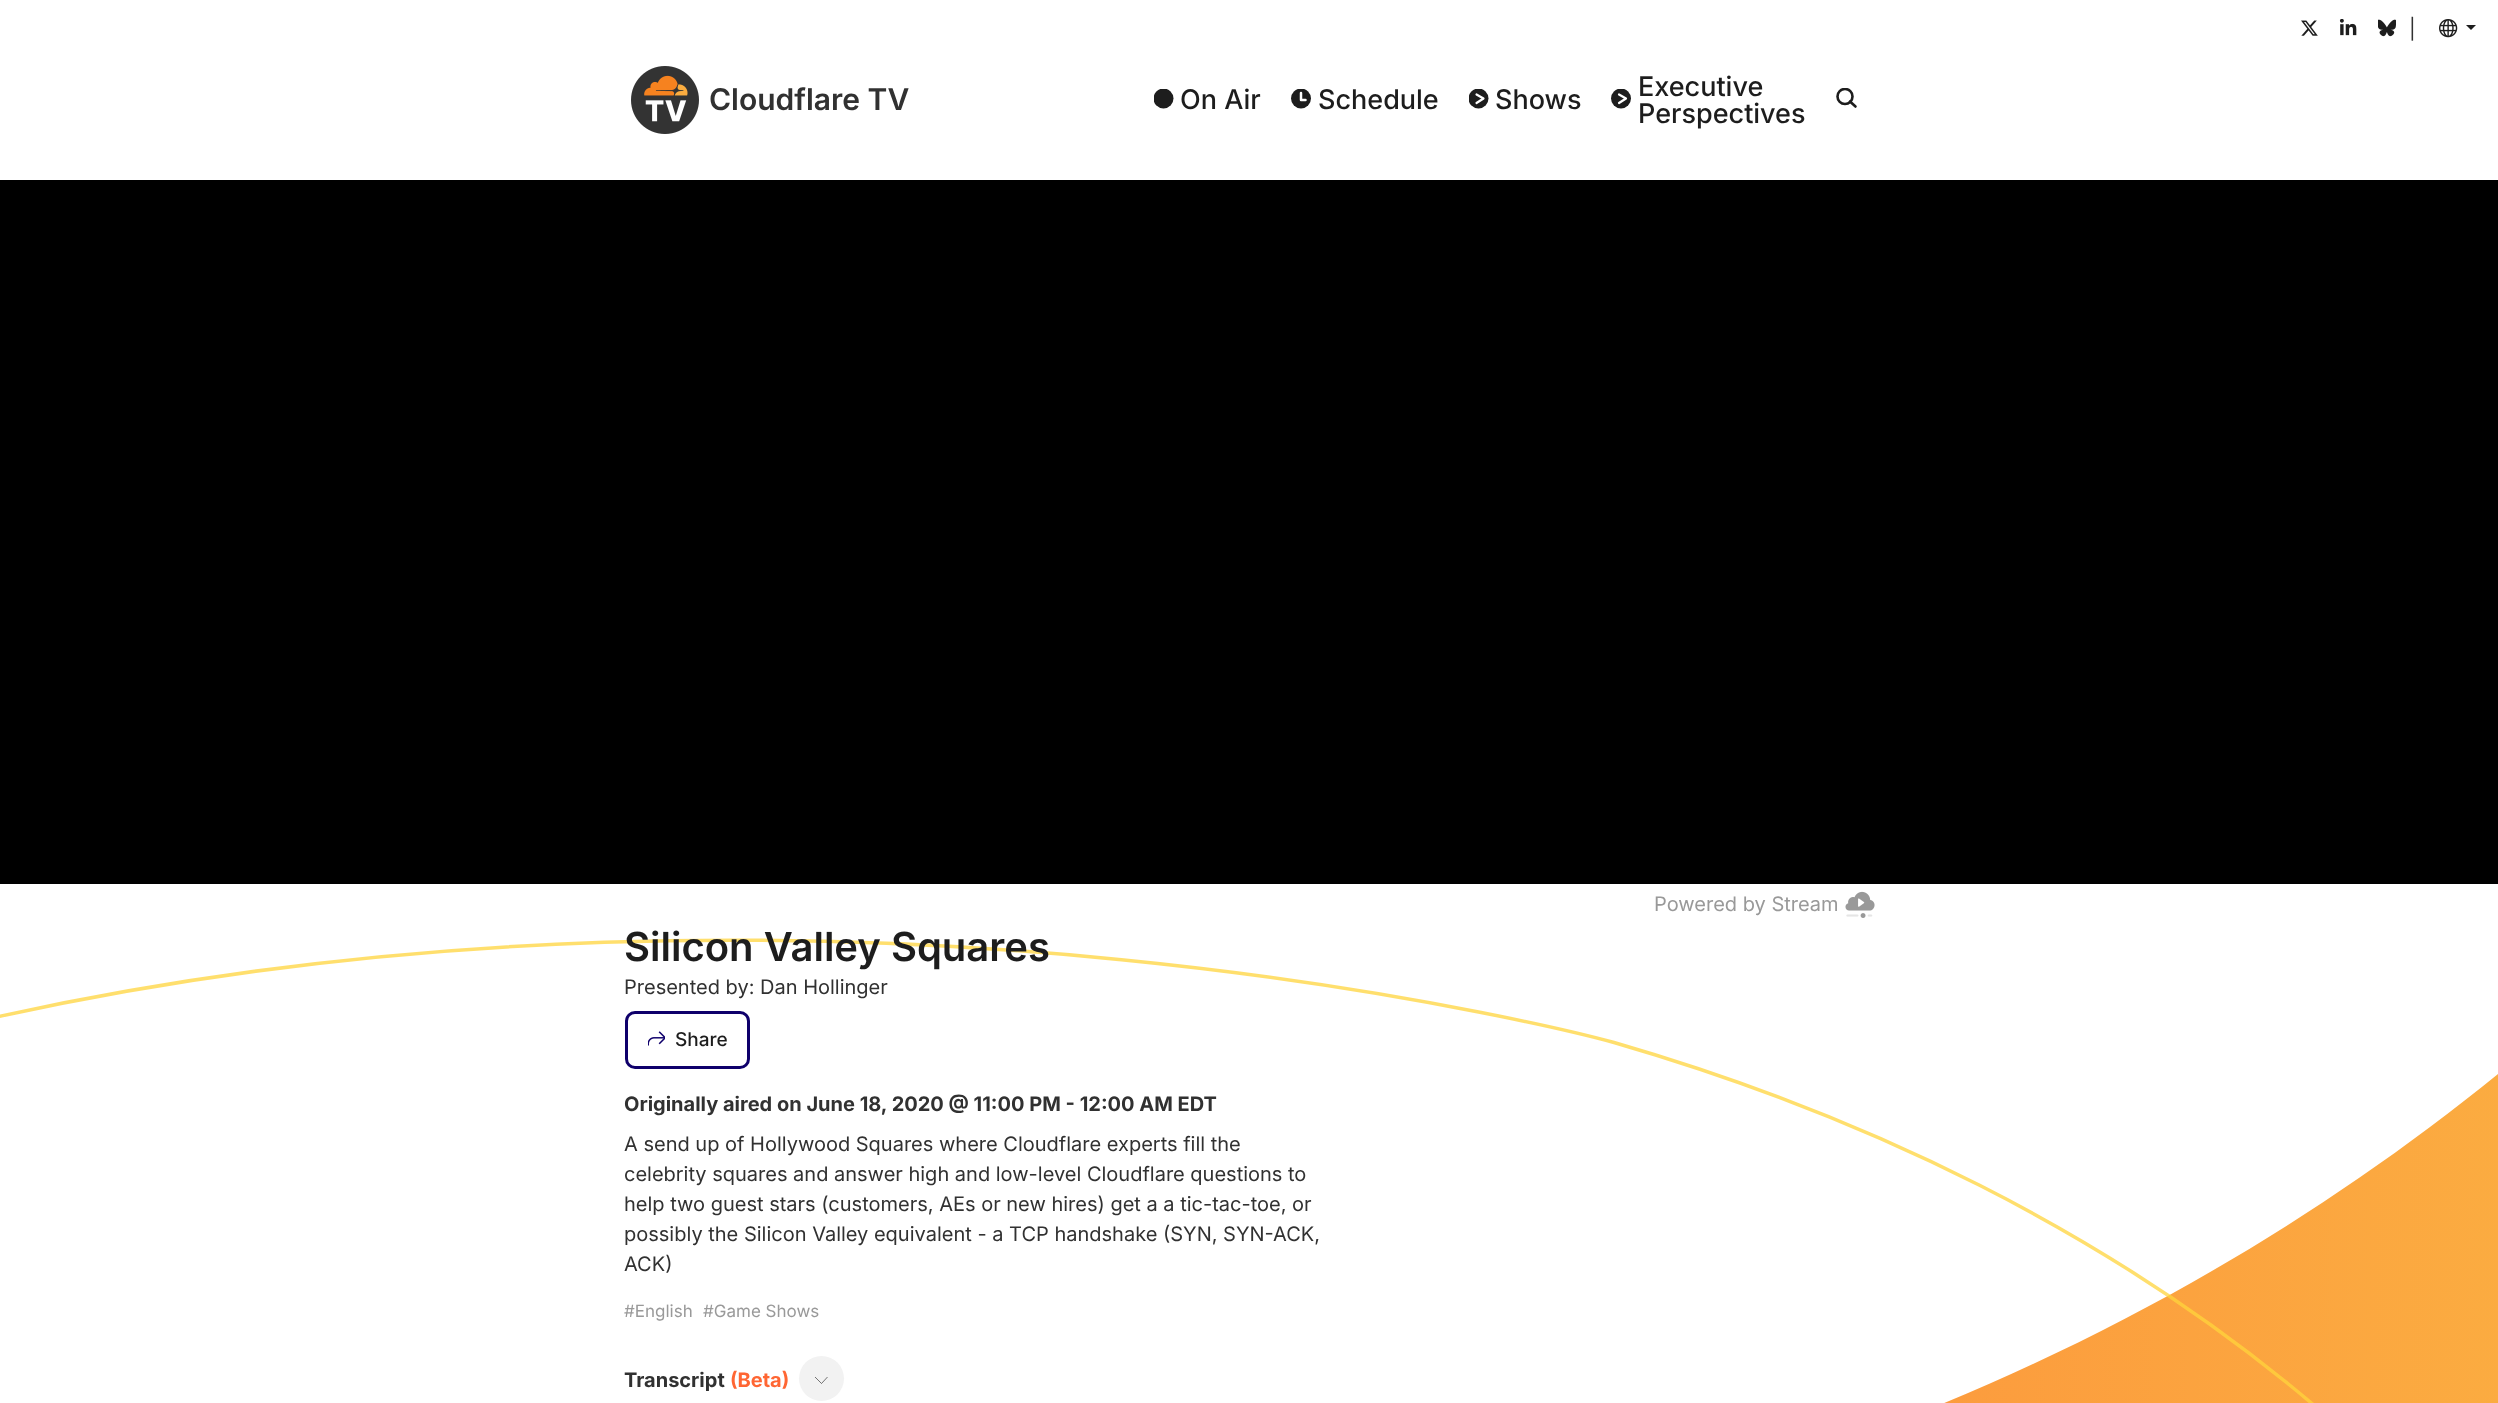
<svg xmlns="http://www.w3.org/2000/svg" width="2498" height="1403">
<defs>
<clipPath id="clip1"><rect x="1154" y="89" width="20" height="20"/></clipPath>
<clipPath id="clip2"><rect x="1291" y="89" width="20" height="20"/></clipPath>
<clipPath id="clip3"><rect x="1469" y="89" width="20" height="20"/></clipPath>
<clipPath id="clip4"><rect x="1611" y="89" width="20" height="20"/></clipPath>
<clipPath id="clip5"><rect x="1836" y="88" width="22" height="21"/></clipPath>
<linearGradient id="g1" gradientUnits="userSpaceOnUse" x1="-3.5" y1="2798" x2="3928" y2="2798"><stop offset="0" stop-color="#f63"/><stop offset="0.65" stop-color="#fbad41"/></linearGradient>
</defs>
<rect width="100%" height="100%" fill="#fff"/>
<image x="2301" y="20" width="17" height="16" href="media/1.png"/>
<image x="2339" y="19" width="18" height="17" href="media/2.png"/>
<image x="2378" y="19" width="18" height="18" href="media/3.png"/>
<text x="2409" y="36" style="font-family:Inter;font-size:20px;fill:#313131">|</text>
<image x="2439" y="19" width="19" height="19" href="media/4.png"/>
<path d="M2466 25h10l-5 5z" fill="#1d1d1d"/>
<image x="631" y="66" width="68" height="68" href="media/5.png"/>
<text x="709" y="110" style="font-family:Inter;font-size:30px;font-weight:600;fill:#313131">Cloudflare TV</text>
<g clip-path="url(#clip1)">
<circle cx="1163.5" cy="98.5" r="10" fill="#1d1d1d"/>
</g>
<text x="1180" y="109" style="font-family:Inter;font-size:27px;font-weight:500;fill:#1d1d1d">On Air</text>
<g clip-path="url(#clip2)">
<circle cx="1301" cy="98.5" r="10" fill="#1d1d1d"/>
</g>
<path d="M1301 93v7h4.5" fill="none" stroke="#fff" stroke-width="2.5" stroke-linecap="round" stroke-linejoin="round"/>
<text x="1318" y="109" style="font-family:Inter;font-size:27px;font-weight:500;fill:#1d1d1d">Schedule</text>
<g clip-path="url(#clip3)">
<circle cx="1478.5" cy="98.5" r="10" fill="#1d1d1d"/>
</g>
<path d="M1476.5 94.5l7 4l-7 4.5" fill="none" stroke="#fff" stroke-width="2.2" stroke-linecap="round" stroke-linejoin="round"/>
<text x="1495" y="109" style="font-family:Inter;font-size:27px;font-weight:500;fill:#1d1d1d">Shows</text>
<g clip-path="url(#clip4)">
<circle cx="1621" cy="98.5" r="10" fill="#1d1d1d"/>
</g>
<path d="M1619 94.5l7 4l-7 4.5" fill="none" stroke="#fff" stroke-width="2.2" stroke-linecap="round" stroke-linejoin="round"/>
<text x="1638" y="96" style="font-family:Inter;font-size:27px;font-weight:500;fill:#1d1d1d">Executive</text>
<text x="1638" y="123" style="font-family:Inter;font-size:27px;font-weight:500;fill:#1d1d1d">Perspectives</text>
<g clip-path="url(#clip5)">
<circle cx="1845" cy="96.5" r="7.5" fill="none" stroke="#1d1d1d" stroke-width="2.6"/>
</g>
<path d="M1850 101.5l5.5 5" fill="none" stroke="#1d1d1d" stroke-width="2.6" stroke-linecap="round" stroke-linejoin="round"/>
<rect y="180" width="2498" height="704" fill="#000"/>
<text x="1654" y="911" style="font-family:Inter;font-size:20px;fill:#999">Powered by Stream</text>
<image x="1845" y="891" width="30" height="27" href="media/6.png"/>
<path d="M2430 1127c-632 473-1490 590-2429 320l-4 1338l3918 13l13-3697l-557-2c-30 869-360 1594-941 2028z" fill="url(#g1)"/>
<path d="M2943 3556l-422-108.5c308-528 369-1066.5 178.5-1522.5c-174-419.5-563-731-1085.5-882.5c0 0-773.5-212.5-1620-25" fill="none" stroke="#ffd43cbf" stroke-width="3.5"/>
<text x="624" y="961" style="font-family:Inter;font-size:40px;font-weight:600;fill:#1d1d1d">Silicon Valley Squares</text>
<text x="624" y="994" style="font-family:Inter;font-size:20px;fill:#313131">Presented by: Dan Hollinger</text>
<rect x="626.5" y="1012.5" width="122" height="55" rx="8.5" fill="none" stroke="#0f006b" stroke-width="3"/>
<image x="648" y="1031" width="17" height="15" href="media/7.png"/>
<text x="675" y="1046" style="font-family:Inter;font-size:19px;font-weight:500;fill:#1d1d1d">Share</text>
<text x="624" y="1111" style="font-family:Inter;font-size:20px;font-weight:bold;fill:#313131">Originally aired on June 18, 2020 @ 11:00 PM - 12:00 AM EDT</text>
<text x="624" y="1151" style="font-family:Inter;font-size:20px;fill:#313131">A send up of Hollywood Squares where Cloudflare experts fill the</text>
<text x="624" y="1181" style="font-family:Inter;font-size:20px;fill:#313131">celebrity squares and answer high and low-level Cloudflare questions to</text>
<text x="624" y="1211" style="font-family:Inter;font-size:20px;fill:#313131">help two guest stars (customers, AEs or new hires) get a a tic-tac-toe, or</text>
<text x="624" y="1241" style="font-family:Inter;font-size:20px;fill:#313131">possibly the Silicon Valley equivalent - a TCP handshake (SYN, SYN-ACK,</text>
<text x="624" y="1271" style="font-family:Inter;font-size:20px;fill:#313131">ACK)</text>
<text x="624" y="1317" style="font-family:Inter;font-size:17px;fill:#999">#English</text>
<text x="703" y="1317" style="font-family:Inter;font-size:17px;fill:#999">#Game Shows</text>
<text x="624" y="1387" style="font-family:Inter;font-size:20px;font-weight:bold;fill:#313131">Transcript</text>
<text x="730" y="1387" style="font-family:Inter;font-size:20px;font-weight:bold;fill:#f63">(Beta)</text>
<circle cx="821.5" cy="1378.5" r="22.5" fill="#f2f2f2"/>
<path d="M827.5 1377l-6 6.5l-6.5-6.5" fill="none" stroke="#1d1d1d" stroke-width="0.6"/>
</svg>
